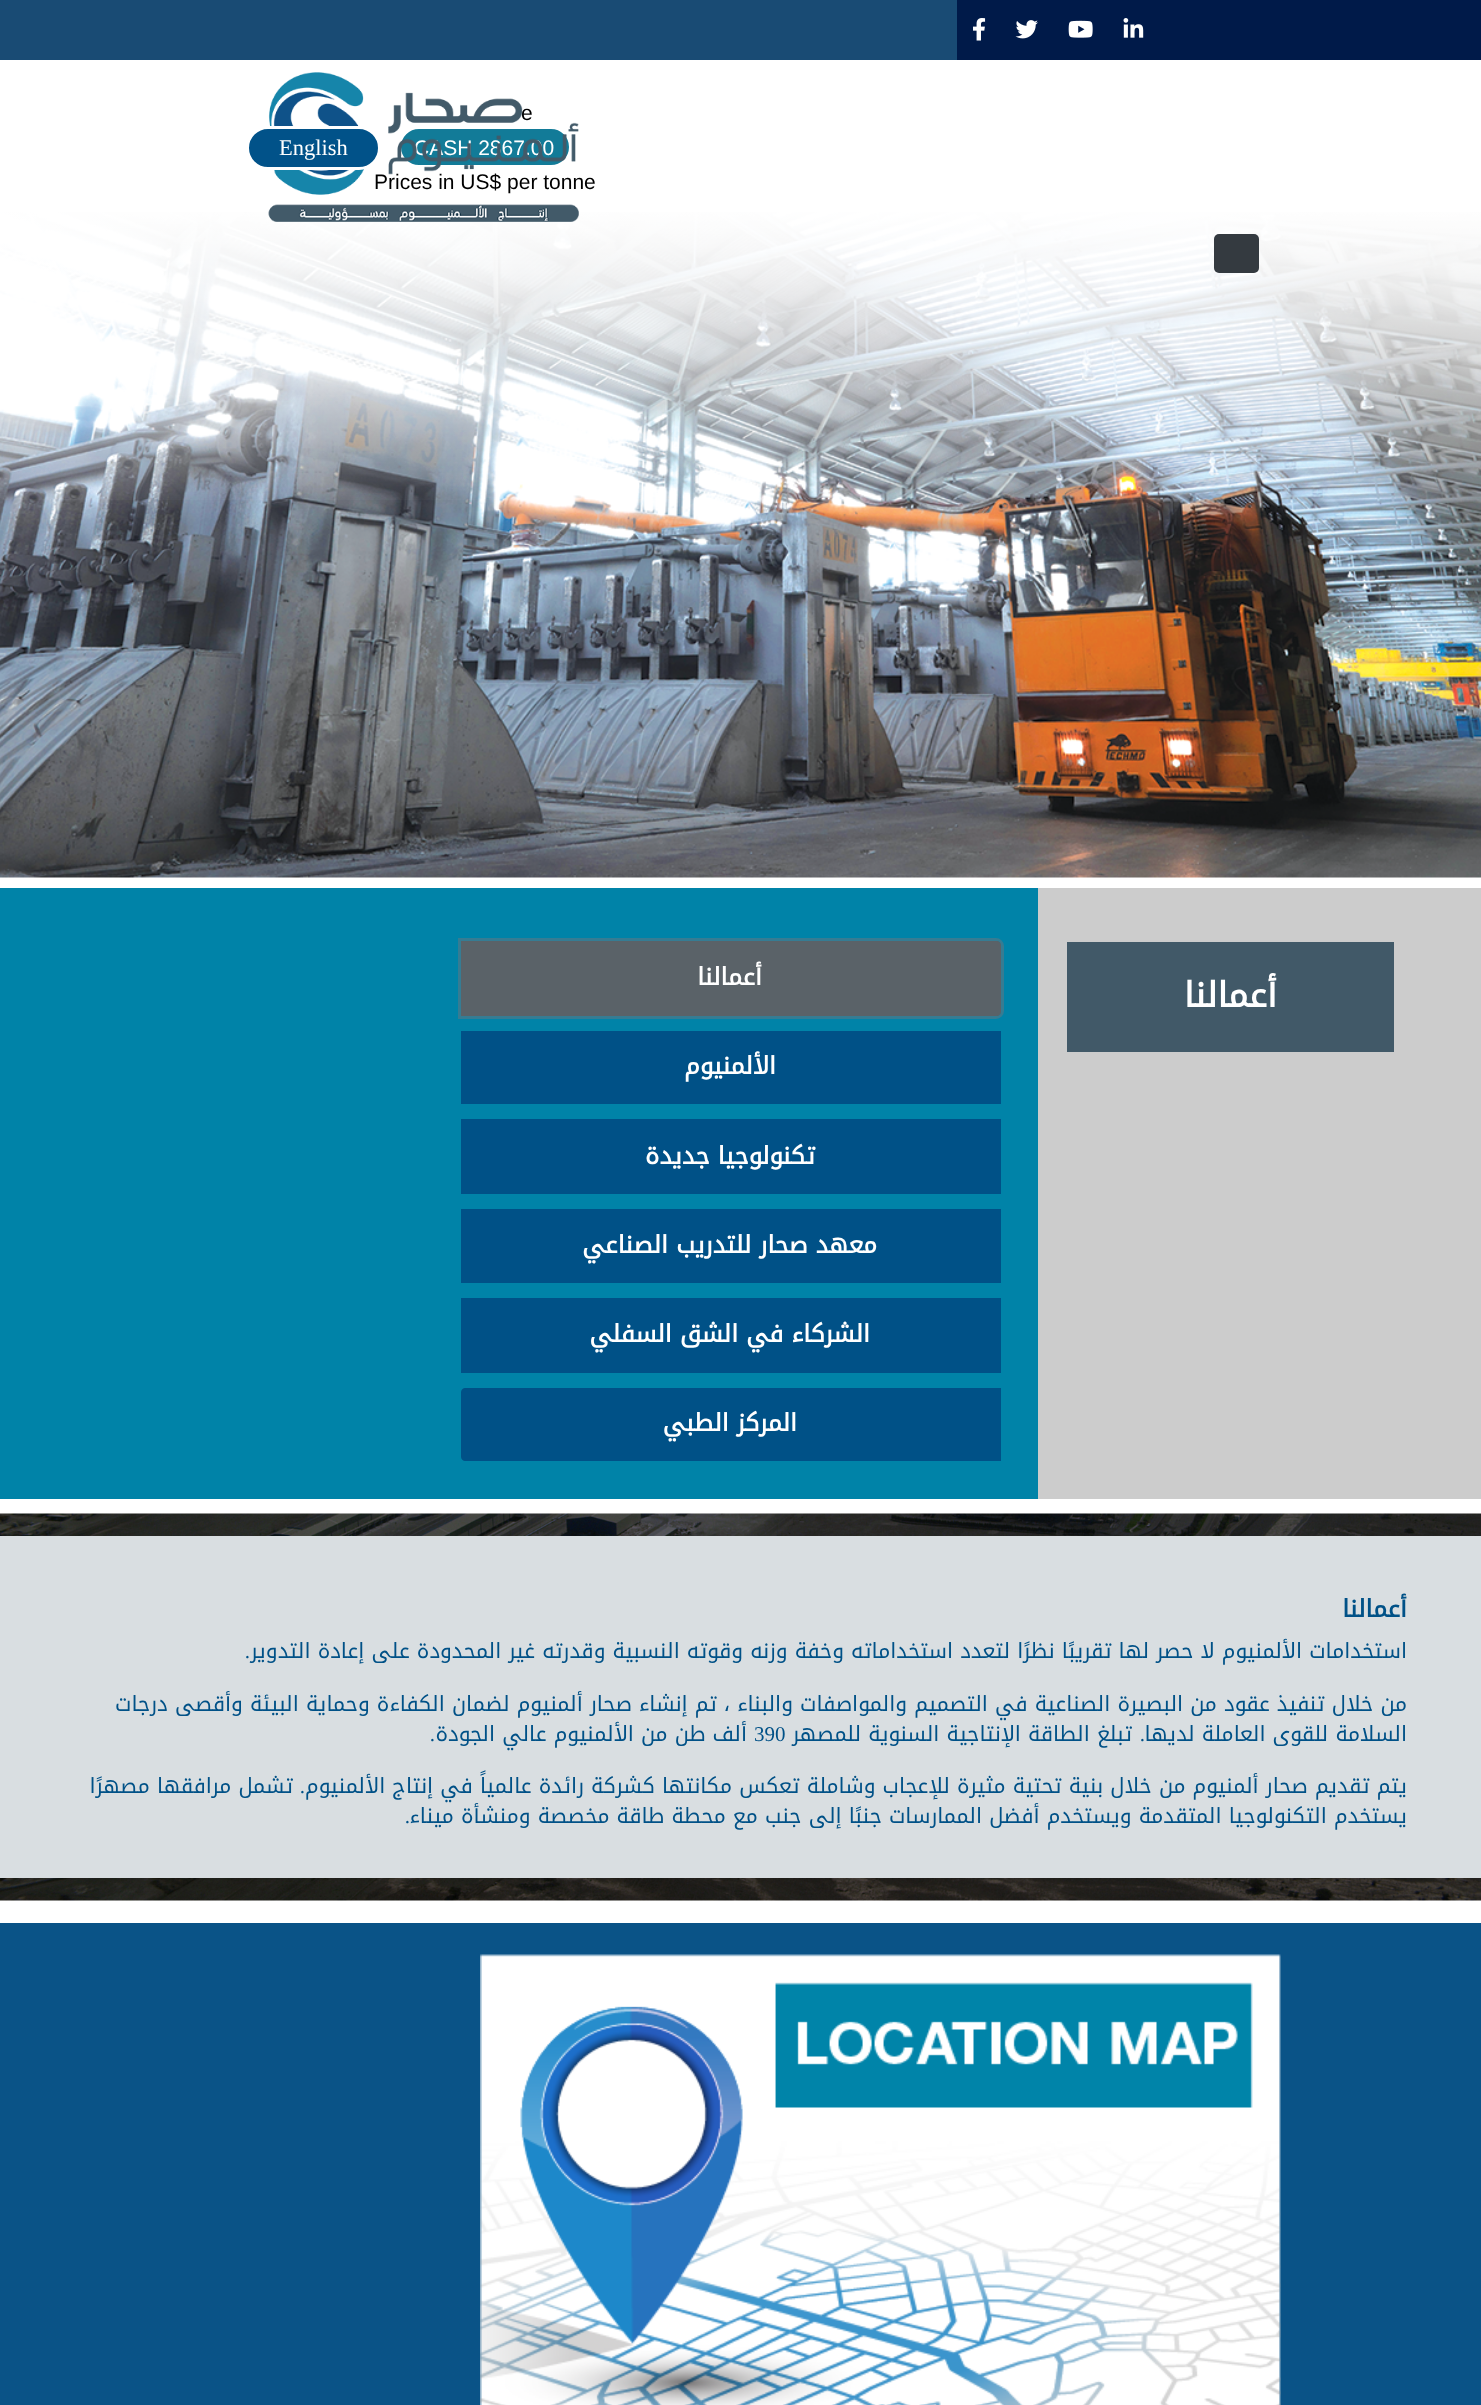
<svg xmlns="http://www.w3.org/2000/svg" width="1481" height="2405">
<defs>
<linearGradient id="g1" gradientUnits="userSpaceOnUse" x1="741" y1="60" x2="741" y2="510"><stop offset="0" stop-color="#fff"/><stop offset="0.25" stop-color="#fff" stop-opacity="0.75"/><stop offset="0.6" stop-color="#fff" stop-opacity="0.4"/><stop offset="0.7" stop-color="#fff" stop-opacity="0.3"/><stop offset="1" stop-color="#fff" stop-opacity="0"/></linearGradient>
</defs>
<rect width="100%" height="100%" fill="#fff"/>
<rect width="957" height="60" fill="#194b74"/>
<rect x="957" width="524" height="60" fill="#001a49"/>
<image x="1123" y="18" width="21" height="20" href="media/1.png"/>
<image x="1068" y="20" width="25" height="18" href="media/2.png"/>
<image x="1015" y="20" width="23" height="19" href="media/3.png"/>
<image x="973" y="18" width="13" height="23" href="media/4.png"/>
<image x="0" y="212" width="1481" height="666" href="media/6.png"/>
<rect y="212" width="1481" height="288" fill="url(#g1)"/>
<text x="521" y="120" style="font-family:Liberation Sans;font-size:21px;fill:#000">e</text>
<rect x="399.5" y="127.5" width="171" height="39" rx="19.5" fill="#127b98" stroke="#fff" stroke-width="3"/>
<text x="414" y="155" style="font-family:Liberation Sans;font-size:21px;fill:#fff">CASH 2867.00</text>
<text x="374" y="189" style="font-family:Liberation Sans;font-size:21px;fill:#000">Prices in US$ per tonne</text>
<image x="268" y="72" width="311" height="150" href="media/5.png"/>
<rect x="247.5" y="127.5" width="132" height="41" rx="20.5" fill="#015289" stroke="#fff" stroke-width="3"/>
<text x="279" y="155" style="font-family:Liberation Serif;font-size:22.5px;fill:#fff">English</text>
<rect x="1214" y="234" width="45" height="39" rx="5" fill="#343a40"/>
<rect x="1038" y="888" width="443" height="611" fill="#ccc"/>
<rect x="1067" y="942" width="327" height="110" fill="#415968"/>
<text x="1277" y="1007" style="font-family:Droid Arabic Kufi;font-size:34.5px;font-weight:bold;direction:rtl;fill:#fff">أعمالنا</text>
<rect y="888" width="1038" height="611" fill="#0083a8"/>
<path d="M459.5 939.5h536.5c3.5 0 6.5 3 6.5 6.5v65c0 3.5-3 6.5-6.5 6.5h-536.5z" fill="none" stroke="#367c93" stroke-width="3"/>
<path d="M461 941h536c2 0 4 2 4 4v67c0 2-2 4-4 4h-536z" fill="#5a6268"/>
<text x="762" y="985" style="font-family:Droid Arabic Kufi;font-size:24px;font-weight:bold;direction:rtl;fill:#fff">أعمالنا</text>
<rect x="461" y="1031" width="540" height="73" fill="#005187"/>
<text x="776" y="1074" style="font-family:Droid Arabic Kufi;font-size:24px;font-weight:bold;direction:rtl;fill:#fff">الألمنيوم</text>
<rect x="461" y="1119" width="540" height="75" fill="#005187"/>
<text x="815" y="1164" style="font-family:Droid Arabic Kufi;font-size:24px;font-weight:bold;direction:rtl;fill:#fff">تكنولوجيا جديدة</text>
<rect x="461" y="1209" width="540" height="74" fill="#005187"/>
<text x="877" y="1253" style="font-family:Droid Arabic Kufi;font-size:24px;font-weight:bold;direction:rtl;fill:#fff">معهد صحار للتدريب الصناعي</text>
<rect x="461" y="1298" width="540" height="75" fill="#005187"/>
<text x="870" y="1342" style="font-family:Droid Arabic Kufi;font-size:24px;font-weight:bold;direction:rtl;fill:#fff">الشركاء في الشق السفلي</text>
<path d="M465 1388h536v73h-536c-2 0-4-2-4-4v-65c0-2 2-4 4-4z" fill="#005187"/>
<text x="797" y="1431" style="font-family:Droid Arabic Kufi;font-size:24px;font-weight:bold;direction:rtl;fill:#fff">المركز الطبي</text>
<image x="0" y="1513" width="1481" height="388" href="media/7.png"/>
<rect y="1536" width="1481" height="342" fill="#d9dee1"/>
<text x="1407" y="1617" style="font-family:Droid Arabic Kufi;font-size:24px;font-weight:bold;direction:rtl;fill:#005187">أعمالنا</text>
<text x="250" y="1658" style="font-family:Liberation Serif;font-size:21px;direction:rtl;fill:#005187">.</text>
<text x="1407" y="1658" style="font-family:Droid Arabic Kufi;font-size:21px;direction:rtl;fill:#005187">استخدامات الألمنيوم لا حصر لها تقريبًا نظرًا لتعدد استخداماته وخفة وزنه وقوته النسبية وقدرته غير المحدودة على إعادة التدوير</text>
<text x="1407" y="1711" style="font-family:Droid Arabic Kufi;font-size:21px;direction:rtl;fill:#005187">من خلال تنفيذ عقود من البصيرة الصناعية في التصميم والمواصفات والبناء ، تم إنشاء صحار ألمنيوم لضمان الكفاءة وحماية البيئة وأقصى درجات</text>
<text x="1407" y="1741" style="font-family:Droid Arabic Kufi;font-size:21px;direction:rtl;fill:#005187">السلامة للقوى العاملة لديها</text>
<text x="1145" y="1741" style="font-family:Liberation Serif;font-size:21px;direction:rtl;fill:#005187">.</text>
<text x="1132" y="1741" style="font-family:Droid Arabic Kufi;font-size:21px;direction:rtl;fill:#005187">تبلغ الطاقة الإنتاجية السنوية للمصهر</text>
<text x="754" y="1741" style="font-family:Liberation Serif;font-size:21px;fill:#005187">390</text>
<text x="747" y="1741" style="font-family:Droid Arabic Kufi;font-size:21px;direction:rtl;fill:#005187">ألف طن من الألمنيوم عالي الجودة</text>
<text x="435" y="1741" style="font-family:Liberation Serif;font-size:21px;direction:rtl;fill:#005187">.</text>
<text x="1407" y="1793" style="font-family:Droid Arabic Kufi;font-size:21px;direction:rtl;fill:#005187">يتم تقديم صحار ألمنيوم من خلال بنية تحتية مثيرة للإعجاب وشاملة تعكس مكانتها كشركة رائدة عالمياً في إنتاج الألمنيوم</text>
<text x="305" y="1793" style="font-family:Liberation Serif;font-size:21px;direction:rtl;fill:#005187">.</text>
<text x="293" y="1793" style="font-family:Droid Arabic Kufi;font-size:21px;direction:rtl;fill:#005187">تشمل مرافقها مصهرًا</text>
<text x="1407" y="1823" style="font-family:Droid Arabic Kufi;font-size:21px;direction:rtl;fill:#005187">يستخدم التكنولوجيا المتقدمة ويستخدم أفضل الممارسات جنبًا إلى جنب مع محطة طاقة مخصصة ومنشأة ميناء</text>
<text x="410" y="1823" style="font-family:Liberation Serif;font-size:21px;direction:rtl;fill:#005187">.</text>
<rect y="1923" width="1481" height="482" fill="#0a5387"/>
<image x="480" y="1954" width="801" height="451" href="media/8.png"/>
</svg>
